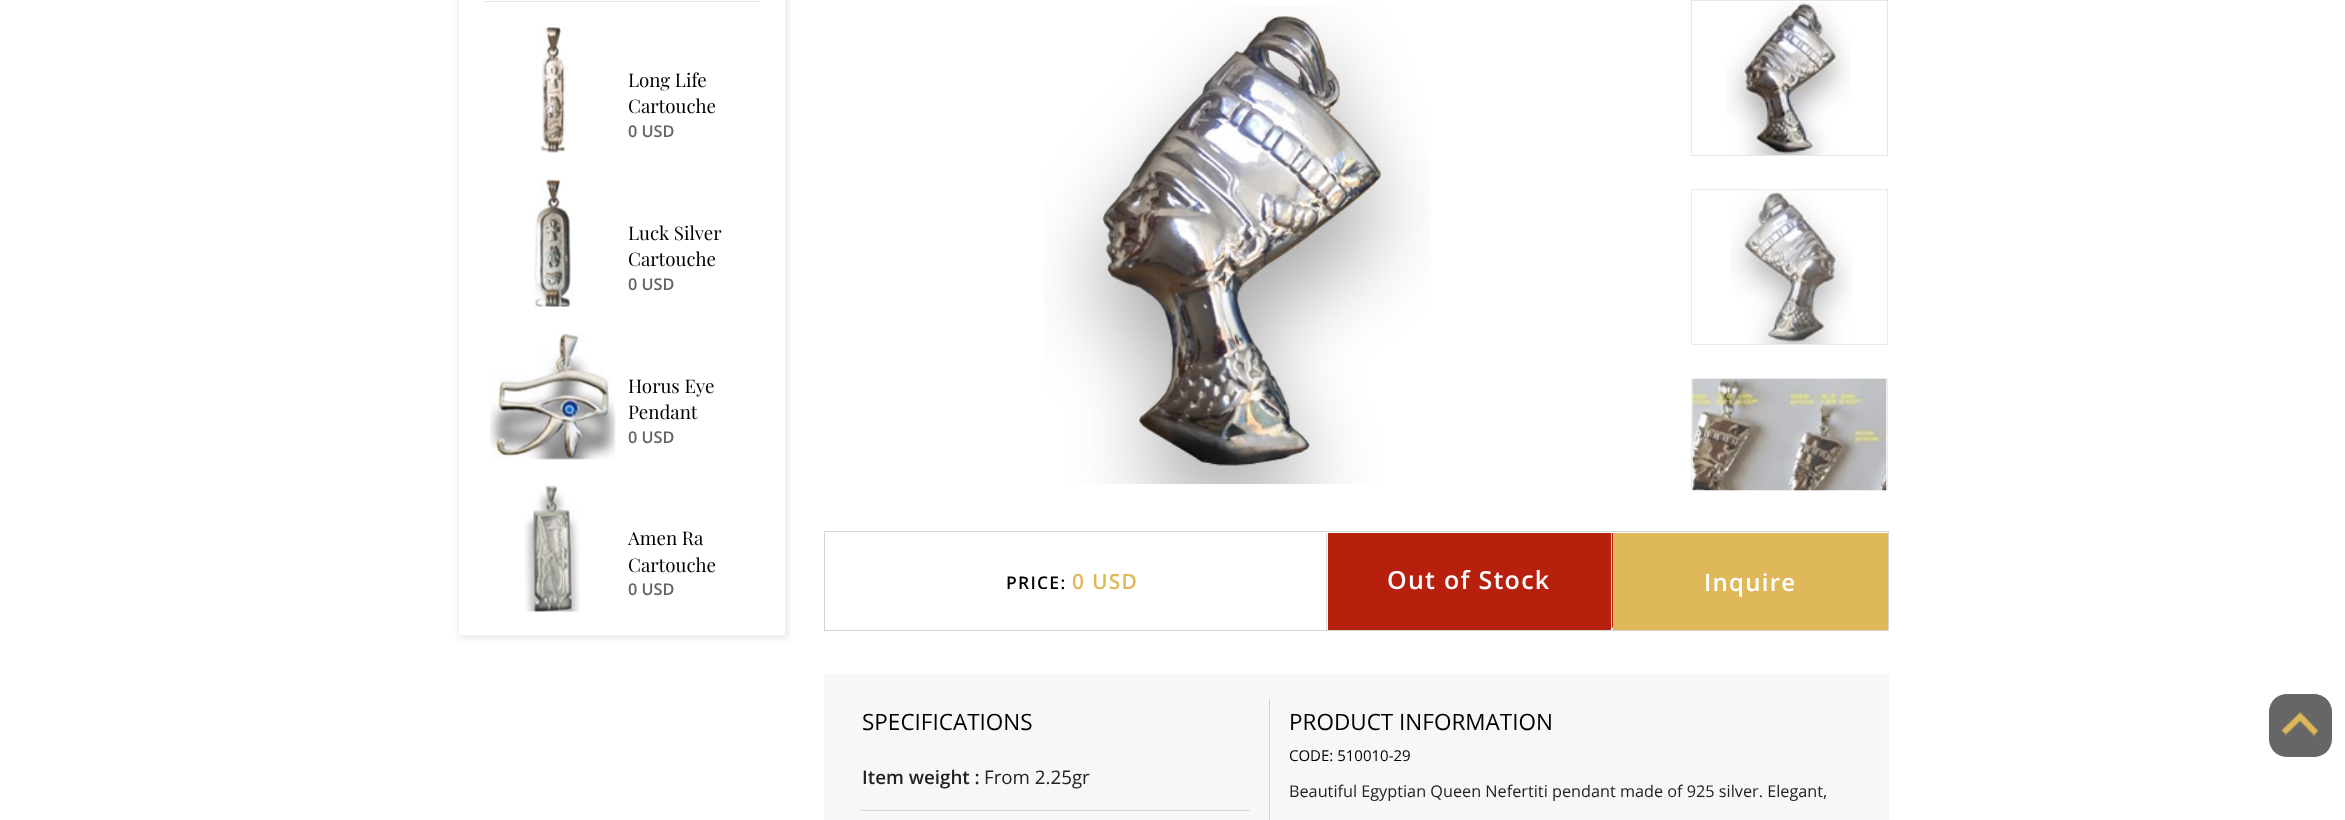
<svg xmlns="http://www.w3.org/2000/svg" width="2345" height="820">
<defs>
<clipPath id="clip1"><path d="M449 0h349v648h-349zm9-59h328v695h-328z" clip-rule="evenodd"/></clipPath>
<clipPath id="clip2"><rect x="1689" width="201" height="490"/></clipPath>
</defs>
<rect width="100%" height="100%" fill="#fff"/>
<g clip-path="url(#clip1)">
<rect x="459" y="-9" width="329" height="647" fill="#e8e6e6" filter="blur(3px)"/>
</g>
<rect x="458.5" y="-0.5" width="327" height="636" fill="none" stroke="#f3f3f3"/>
<rect x="484" y="1" width="276" height="1" fill="#e3e3e3"/>
<image x="540" y="27" width="28" height="126" href="media/1.png"/>
<text x="628" y="87" style="font-family:Playfair Display;font-size:18.75px;fill:#000">Long Life</text>
<text x="628" y="113" style="font-family:Playfair Display;font-size:18.75px;fill:#000">Cartouche</text>
<text x="628" y="137" style="font-family:Open Sans;font-size:16.25px;font-weight:600;fill:#636363">0 USD</text>
<image x="534" y="179" width="39" height="128" href="media/2.png"/>
<text x="628" y="240" style="font-family:Playfair Display;font-size:18.75px;fill:#000">Luck Silver</text>
<text x="628" y="266" style="font-family:Playfair Display;font-size:18.75px;fill:#000">Cartouche</text>
<text x="628" y="290" style="font-family:Open Sans;font-size:16.25px;font-weight:600;fill:#636363">0 USD</text>
<image x="490" y="332" width="126" height="128" href="media/3.png"/>
<text x="628" y="393" style="font-family:Playfair Display;font-size:18.75px;fill:#000">Horus Eye</text>
<text x="628" y="419" style="font-family:Playfair Display;font-size:18.75px;fill:#000">Pendant</text>
<text x="628" y="443" style="font-family:Open Sans;font-size:16.25px;font-weight:600;fill:#636363">0 USD</text>
<image x="524" y="485" width="56" height="127" href="media/4.png"/>
<text x="628" y="545" style="font-family:Playfair Display;font-size:18.75px;fill:#000">Amen Ra</text>
<text x="628" y="572" style="font-family:Playfair Display;font-size:18.75px;fill:#000">Cartouche</text>
<text x="628" y="595" style="font-family:Open Sans;font-size:16.25px;font-weight:600;fill:#636363">0 USD</text>
<image x="1044" y="6" width="387" height="478" href="media/5.png"/>
<rect x="1691.5" y="0.5" width="196" height="155" fill="none" stroke="#e6e6e6"/>
<image x="1726" y="2" width="125" height="153" href="media/6.png"/>
<rect x="1691.5" y="189.5" width="196" height="155" fill="none" stroke="#ebebeb"/>
<image x="1730" y="190" width="123" height="154" href="media/7.png"/>
<rect x="824.5" y="531.5" width="1064" height="99" fill="none" stroke="#d5d5d5"/>
<rect x="1613" y="533" width="275" height="97" fill="#dfb859"/>
<g clip-path="url(#clip2)">
<rect x="1691.5" y="378.5" width="196" height="155" fill="none" stroke="#ebebeb"/>
</g>
<image x="1692" y="379" width="195" height="112" href="media/8.png"/>
<rect x="1326" y="533" width="1" height="97" fill="#d8d8d8"/>
<text x="1006" y="589" style="font-family:Open Sans;font-size:17.5px;font-weight:600;letter-spacing:1.25px;fill:#000">PRICE:</text>
<text x="1072" y="589" style="font-family:Open Sans;font-size:21px;font-weight:600;letter-spacing:1.25px;fill:#dfb859">0 USD</text>
<path d="M1328 533h285v93c0 2-2 4-4 4h-281z" fill="#b6200d"/>
<rect x="1611" y="533" width="1" height="96" fill="#d8d8d8"/>
<text x="1387" y="589" style="font-family:Open Sans;font-size:25px;font-weight:600;letter-spacing:1.25px;fill:#fff">Out of Stock</text>
<text x="1704" y="591" style="font-family:Open Sans;font-size:24px;font-weight:600;letter-spacing:1.25px;fill:#fff">Inquire</text>
<rect x="824" y="674" width="1065" height="146" fill="#f7f7f7"/>
<rect x="1269" y="699" width="1" height="121" fill="#d1d1d1"/>
<text x="862" y="730" style="font-family:Open Sans;font-size:22.5px;fill:#000">SPECIFICATIONS</text>
<rect x="861" y="810" width="389" height="1" fill="#d7d7d7"/>
<text x="862" y="784" style="font-family:Open Sans;font-size:18.75px;font-weight:600;fill:#222">Item weight :</text>
<text x="984" y="784" style="font-family:Open Sans;font-size:18.75px;fill:#222">From 2.25gr</text>
<text x="1289" y="730" style="font-family:Open Sans;font-size:22.5px;fill:#000">PRODUCT INFORMATION</text>
<text x="1289" y="761" style="font-family:Open Sans;font-size:15px;fill:#000">CODE: 510010-29</text>
<text x="1289" y="797" style="font-family:Open Sans;font-size:16.25px;fill:#222">Beautiful Egyptian Queen Nefertiti pendant made of 925 silver. Elegant,</text>
<rect x="2268.5" y="693.5" width="64" height="64" rx="18.5" fill="#666" stroke="#fff"/>
<image x="2281" y="711" width="38" height="26" href="media/9.png"/>
</svg>
